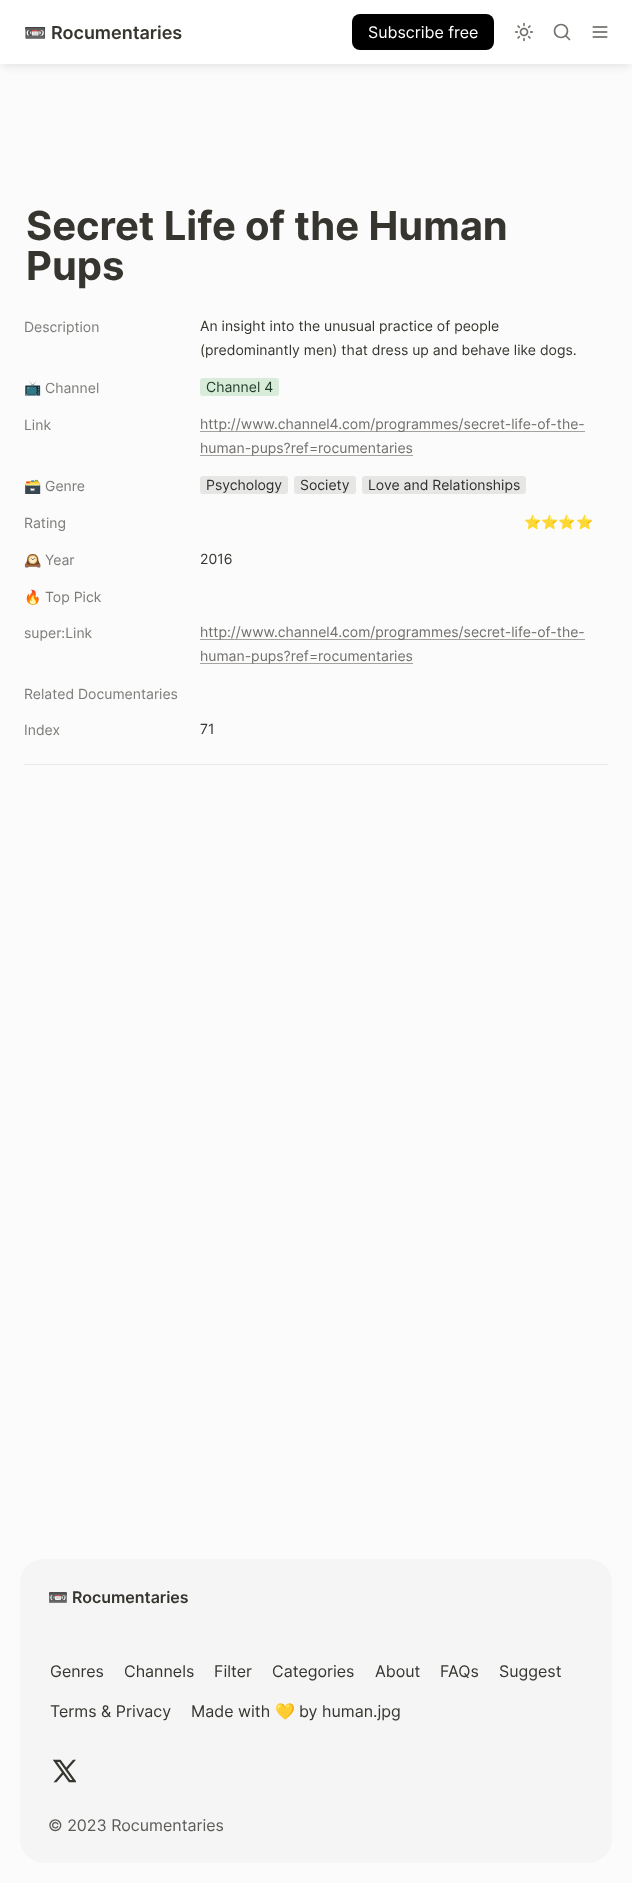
<svg xmlns="http://www.w3.org/2000/svg" width="632" height="1883">
<rect width="100%" height="100%" fill="#fbfbfb"/>
<rect x="2" y="6" width="628" height="60" fill="#0000001a" filter="blur(4px)"/>
<rect width="632" height="64" fill="#fff"/>
<text x="24" y="39" style="font-family:Noto Color Emoji;font-size:18px;fill:#37352f">📼</text>
<text x="51" y="39" style="font-family:Inter;font-size:18px;font-weight:600;fill:#37352f">Rocumentaries</text>
<rect x="352" y="14" width="142" height="36" rx="8" fill="#000"/>
<text x="368" y="38" style="font-family:Inter;font-size:16px;fill:#fff">Subscribe free</text>
<image x="514" y="22" width="20" height="20" href="media/1.png"/>
<circle cx="561" cy="31" r="6.5" fill="none" stroke="#73726d" stroke-width="1.7"/>
<path d="M569.5 39.5l-3.5-3.5" fill="none" stroke="#73726d" stroke-width="1.7" stroke-linecap="round" stroke-linejoin="round"/>
<image x="592" y="26" width="16" height="12" href="media/2.png"/>
<text x="26" y="240" style="font-family:Inter;font-size:40px;font-weight:bold;fill:#37352f">Secret Life of the Human</text>
<text x="26" y="280" style="font-family:Inter;font-size:40px;font-weight:bold;fill:#37352f">Pups</text>
<text x="24" y="332" style="font-family:Inter;font-size:14px;fill:#7d7c78">Description</text>
<text x="200" y="331" style="font-family:Inter;font-size:14px;fill:#37352f">An insight into the unusual practice of people</text>
<text x="200" y="355" style="font-family:Inter;font-size:14px;fill:#37352f">(predominantly men) that dress up and behave like dogs.</text>
<text x="24" y="393" style="font-family:Noto Color Emoji;font-size:14px;fill:#7d7c78">📺</text>
<text x="45" y="393" style="font-family:Inter;font-size:14px;fill:#7d7c78">Channel</text>
<rect x="200" y="378" width="79" height="18" rx="3" fill="#d9ecda"/>
<text x="206" y="392" style="font-family:Inter;font-size:14px;fill:#1e392a">Channel 4</text>
<text x="24" y="430" style="font-family:Inter;font-size:14px;fill:#7d7c78">Link</text>
<rect x="200" y="431" width="385" height="1" fill="#a3a29f"/>
<text x="200" y="429" style="font-family:Inter;font-size:14px;fill:#72706c">http://www.channel4.com/programmes/secret-life-of-the-</text>
<rect x="200" y="455" width="213" height="1" fill="#a3a29f"/>
<text x="200" y="453" style="font-family:Inter;font-size:14px;fill:#72706c">human-pups?ref=rocumentaries</text>
<text x="24" y="491" style="font-family:Noto Color Emoji;font-size:14px;fill:#7d7c78">🗃️</text>
<text x="45" y="491" style="font-family:Inter;font-size:14px;fill:#7d7c78">Genre</text>
<rect x="200" y="476" width="88" height="18" rx="3" fill="#e6e6e5"/>
<text x="206" y="490" style="font-family:Inter;font-size:14px;fill:#2f2e2d">Psychology</text>
<rect x="294" y="476" width="62" height="18" rx="3" fill="#e6e6e5"/>
<text x="300" y="490" style="font-family:Inter;font-size:14px;fill:#2f2e2d">Society</text>
<rect x="362" y="476" width="164" height="18" rx="3" fill="#e6e6e5"/>
<text x="368" y="490" style="font-family:Inter;font-size:14px;fill:#2f2e2d">Love and Relationships</text>
<text x="24" y="528" style="font-family:Inter;font-size:14px;fill:#7d7c78">Rating</text>
<text x="524" y="527" style="font-family:Noto Color Emoji;font-size:14px;fill:#4b3320">⭐️⭐️⭐️⭐️</text>
<text x="24" y="565" style="font-family:Noto Color Emoji;font-size:14px;fill:#7d7c78">🕰️</text>
<text x="45" y="565" style="font-family:Inter;font-size:14px;fill:#7d7c78">Year</text>
<text x="200" y="564" style="font-family:Inter;font-size:14px;fill:#37352f">2016</text>
<text x="24" y="602" style="font-family:Noto Color Emoji;font-size:14px;fill:#7d7c78">🔥</text>
<text x="45" y="602" style="font-family:Inter;font-size:14px;fill:#7d7c78">Top Pick</text>
<text x="24" y="638" style="font-family:Inter;font-size:14px;fill:#7d7c78">super:Link</text>
<rect x="200" y="639" width="385" height="1" fill="#a3a29f"/>
<text x="200" y="637" style="font-family:Inter;font-size:14px;fill:#72706c">http://www.channel4.com/programmes/secret-life-of-the-</text>
<rect x="200" y="663" width="213" height="1" fill="#a3a29f"/>
<text x="200" y="661" style="font-family:Inter;font-size:14px;fill:#72706c">human-pups?ref=rocumentaries</text>
<text x="24" y="699" style="font-family:Inter;font-size:14px;fill:#7d7c78">Related Documentaries</text>
<text x="24" y="735" style="font-family:Inter;font-size:14px;fill:#7d7c78">Index</text>
<text x="200" y="734" style="font-family:Inter;font-size:14px;fill:#37352f">71</text>
<rect x="24" y="764" width="584" height="1" fill="#e9e9e7"/>
<rect x="20" y="1559" width="592" height="304" rx="24" fill="#f5f5f6"/>
<text x="48" y="1603" style="font-family:Noto Color Emoji;font-size:16px;fill:#37352f">📼</text>
<text x="72" y="1603" style="font-family:Inter;font-size:16px;font-weight:600;fill:#37352f">Rocumentaries</text>
<text x="50" y="1677" style="font-family:Inter;font-size:16px;fill:#37352f">Genres</text>
<text x="124" y="1677" style="font-family:Inter;font-size:16px;fill:#37352f">Channels</text>
<text x="214" y="1677" style="font-family:Inter;font-size:16px;fill:#37352f">Filter</text>
<text x="272" y="1677" style="font-family:Inter;font-size:16px;fill:#37352f">Categories</text>
<text x="375" y="1677" style="font-family:Inter;font-size:16px;fill:#37352f">About</text>
<text x="440" y="1677" style="font-family:Inter;font-size:16px;fill:#37352f">FAQs</text>
<text x="499" y="1677" style="font-family:Inter;font-size:16px;fill:#37352f">Suggest</text>
<text x="50" y="1717" style="font-family:Inter;font-size:16px;fill:#37352f">Terms &amp; Privacy</text>
<text x="191" y="1717" style="font-family:Inter;font-size:16px;fill:#37352f">Made with</text>
<text x="275" y="1717" style="font-family:Noto Color Emoji;font-size:16px;fill:#37352f">💛</text>
<text x="299" y="1717" style="font-family:Inter;font-size:16px;fill:#37352f">by human.jpg</text>
<image x="52" y="1759" width="24" height="24" href="media/3.png"/>
<text x="48" y="1831" style="font-family:Inter;font-size:16px;fill:#5d5b57">© 2023 Rocumentaries</text>
</svg>
